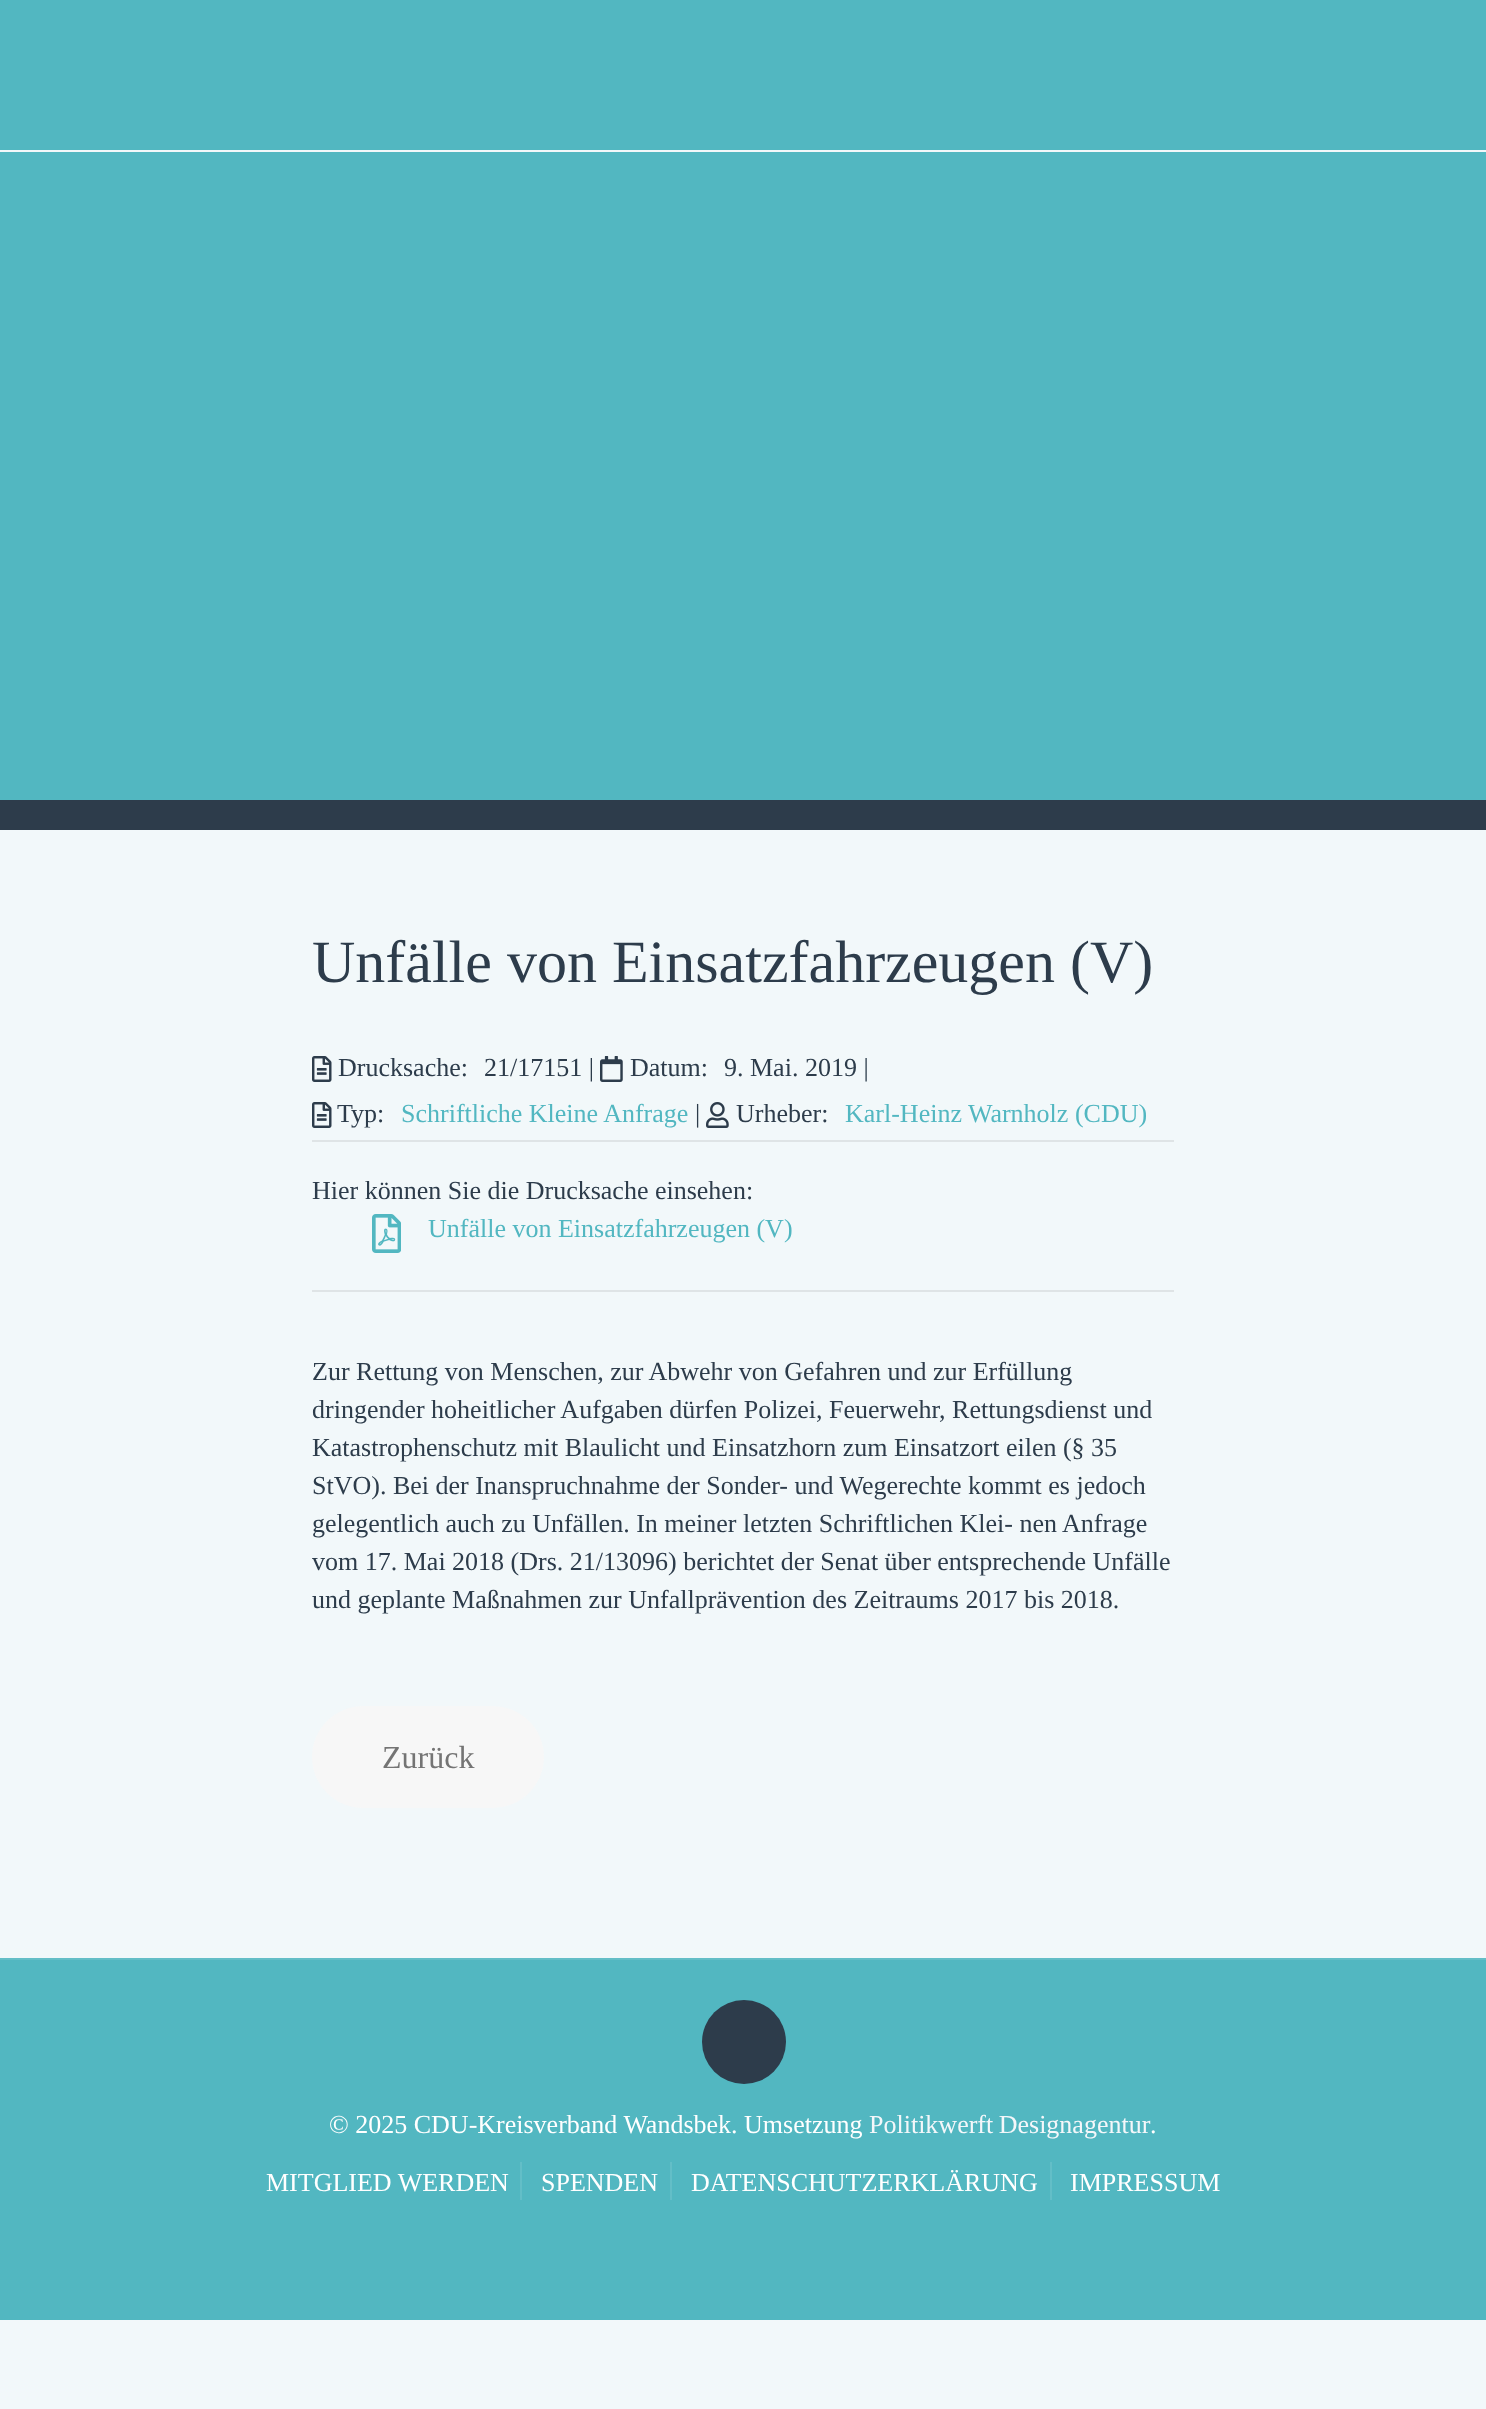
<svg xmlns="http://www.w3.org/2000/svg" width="1486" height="2409">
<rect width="100%" height="100%" fill="#f2f8fa"/>
<rect y="152" width="1486" height="648" fill="#52b7c1"/>
<rect width="1486" height="150" fill="#52b7c1"/>
<rect y="800" width="1486" height="30" fill="#2d3c4b"/>
<text x="312" y="982" style="font-family:Liberation Serif;font-size:60px;fill:#2d3c4b">Unfälle von Einsatzfahrzeugen (V)</text>
<image x="312" y="1056" width="20" height="26" href="media/1.png"/>
<text x="338" y="1076" style="font-family:Liberation Serif;font-size:26px;fill:#2d3c4b">Drucksache:</text>
<text x="484" y="1076" style="font-family:Liberation Serif;font-size:26px;fill:#2d3c4b">21/17151 |</text>
<image x="600" y="1056" width="23" height="26" href="media/2.png"/>
<text x="630" y="1076" style="font-family:Liberation Serif;font-size:26px;fill:#2d3c4b">Datum:</text>
<text x="724" y="1076" style="font-family:Liberation Serif;font-size:26px;fill:#2d3c4b">9. Mai. 2019 |</text>
<image x="312" y="1102" width="20" height="26" href="media/1.png"/>
<text x="337" y="1122" style="font-family:Liberation Serif;font-size:26px;fill:#2d3c4b">Typ:</text>
<text x="401" y="1122" style="font-family:Liberation Serif;font-size:26px;fill:#52b7c1">Schriftliche Kleine Anfrage</text>
<text x="695" y="1122" style="font-family:Liberation Serif;font-size:26px;fill:#2d3c4b">|</text>
<image x="706" y="1102" width="23" height="26" href="media/3.png"/>
<text x="736" y="1122" style="font-family:Liberation Serif;font-size:26px;fill:#2d3c4b">Urheber:</text>
<text x="845" y="1122" style="font-family:Liberation Serif;font-size:26px;fill:#52b7c1">Karl-Heinz Warnholz (CDU)</text>
<rect x="312" y="1140" width="862" height="2" fill="#dfe4e6"/>
<text x="312" y="1199" style="font-family:Liberation Serif;font-size:26px;fill:#2d3c4b">Hier können Sie die Drucksache einsehen:</text>
<image x="372" y="1214" width="29" height="39" href="media/4.png"/>
<text x="428" y="1237" style="font-family:Liberation Serif;font-size:26px;fill:#52b7c1">Unfälle von Einsatzfahrzeugen (V)</text>
<rect x="312" y="1290" width="862" height="2" fill="#dfe4e6"/>
<text x="312" y="1380" style="font-family:Liberation Serif;font-size:26px;fill:#2d3c4b">Zur Rettung von Menschen, zur Abwehr von Gefahren und zur Erfüllung</text>
<text x="312" y="1418" style="font-family:Liberation Serif;font-size:26px;fill:#2d3c4b">dringender hoheitlicher Aufgaben dürfen Polizei, Feuerwehr, Rettungsdienst und</text>
<text x="312" y="1456" style="font-family:Liberation Serif;font-size:26px;fill:#2d3c4b">Katastrophenschutz mit Blaulicht und Einsatzhorn zum Einsatzort eilen (§ 35</text>
<text x="312" y="1494" style="font-family:Liberation Serif;font-size:26px;fill:#2d3c4b">StVO). Bei der Inanspruchnahme der Sonder- und Wegerechte kommt es jedoch</text>
<text x="312" y="1532" style="font-family:Liberation Serif;font-size:26px;fill:#2d3c4b">gelegentlich auch zu Unfällen. In meiner letzten Schriftlichen Klei- nen Anfrage</text>
<text x="312" y="1570" style="font-family:Liberation Serif;font-size:26px;fill:#2d3c4b">vom 17. Mai 2018 (Drs. 21/13096) berichtet der Senat über entsprechende Unfälle</text>
<text x="312" y="1608" style="font-family:Liberation Serif;font-size:26px;fill:#2d3c4b">und geplante Maßnahmen zur Unfallprävention des Zeitraums 2017 bis 2018.</text>
<rect x="312" y="1706" width="232" height="102" rx="51" fill="#f7f7f7"/>
<text x="382" y="1768" style="font-family:Liberation Serif;font-size:32px;fill:#747474">Zurück</text>
<rect y="1960" width="1486" height="360" fill="#52b7c1"/>
<rect y="1958" width="1486" height="2" fill="#63bec7"/>
<circle cx="744" cy="2042" r="42" fill="#2d3c4b"/>
<text x="329" y="2133" style="font-family:Liberation Serif;font-size:26px;fill:#fff">© 2025 CDU-Kreisverband Wandsbek. Umsetzung</text>
<text x="869" y="2133" word-spacing="-1" style="font-family:Liberation Serif;font-size:26px;fill:#f4f7fa">Politikwerft Designagentur</text>
<text x="1150" y="2133" style="font-family:Liberation Serif;font-size:26px;fill:#fff">.</text>
<rect x="520" y="2162" width="2" height="38" fill="#63bec7"/>
<text x="266" y="2191" style="font-family:Liberation Serif;font-size:26px;fill:#fff">MITGLIED WERDEN</text>
<rect x="670" y="2162" width="2" height="38" fill="#63bec7"/>
<text x="541" y="2191" style="font-family:Liberation Serif;font-size:26px;fill:#fff">SPENDEN</text>
<rect x="1050" y="2162" width="2" height="38" fill="#63bec7"/>
<text x="691" y="2191" style="font-family:Liberation Serif;font-size:26px;fill:#fff">DATENSCHUTZERKLÄRUNG</text>
<text x="1070" y="2191" style="font-family:Liberation Serif;font-size:26px;fill:#fff">IMPRESSUM</text>
</svg>
